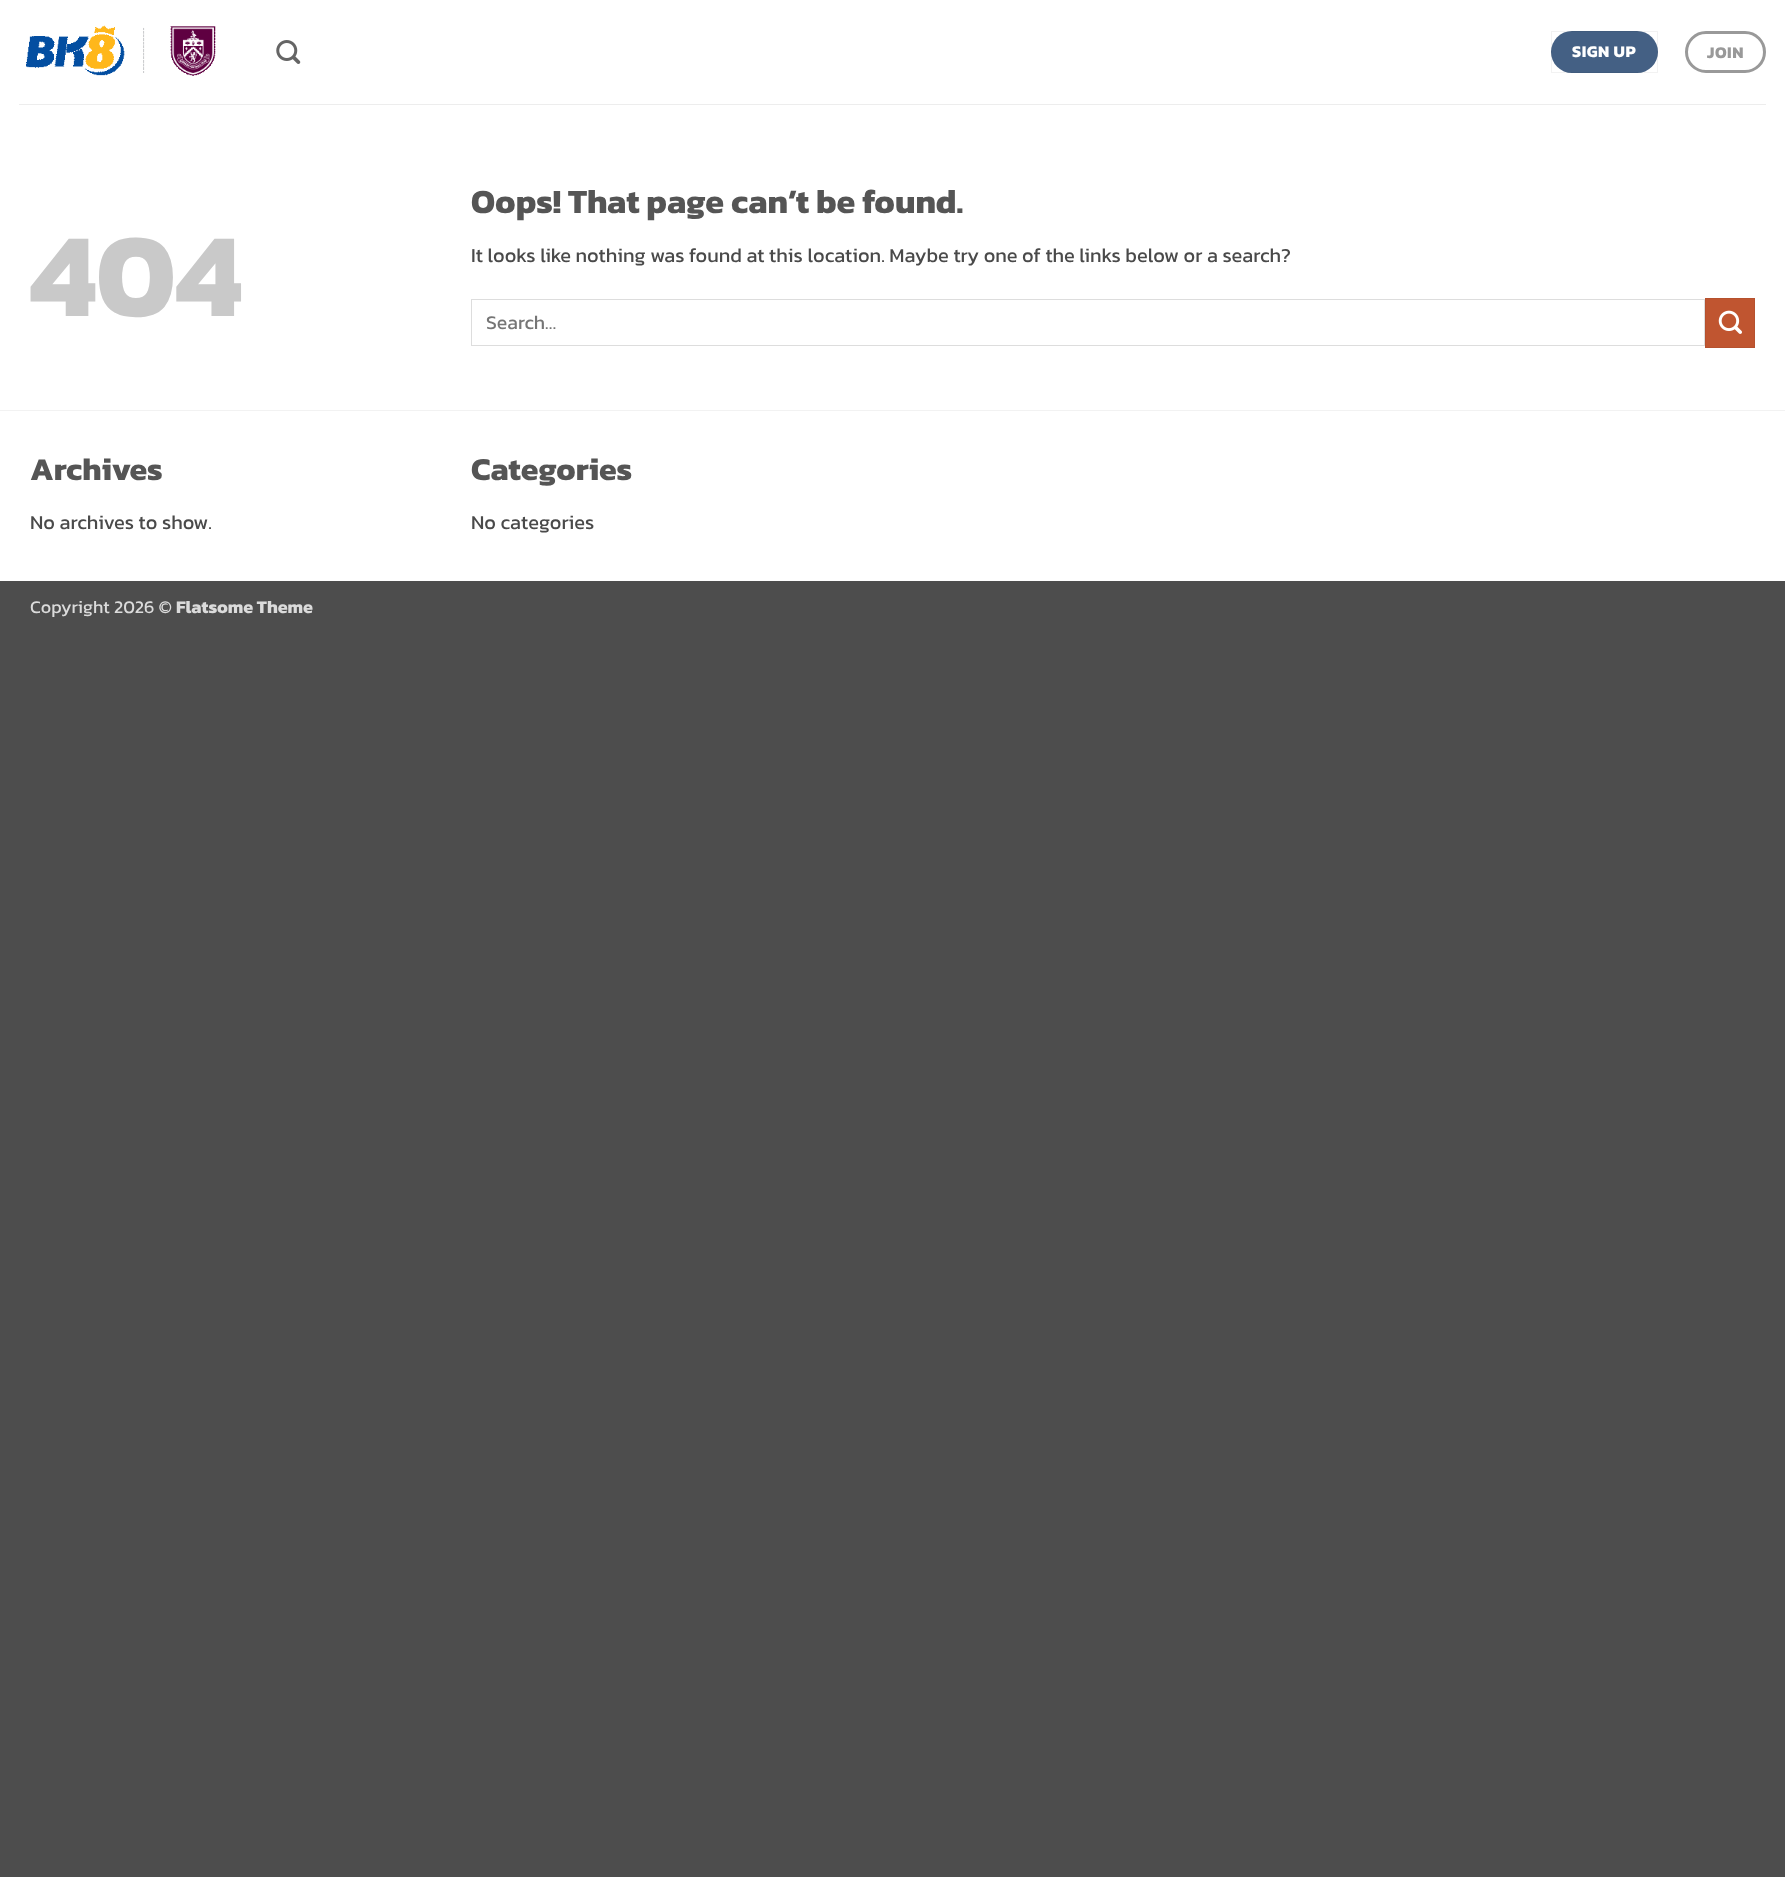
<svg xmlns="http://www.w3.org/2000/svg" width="1785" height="1877">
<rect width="100%" height="100%" fill="#4d4d4d"/>
<rect width="1785" height="581" fill="#fff"/>
<image x="26" y="25" width="190" height="51" href="media/1.png"/>
<image x="276" y="40" width="25" height="24" href="media/2.png"/>
<rect x="1551" y="31" width="107" height="42" rx="21" fill="#446084"/>
<rect x="1551.5" y="31.5" width="106" height="41" fill="none" stroke="#0000000d"/>
<text x="1572" y="57" style="font-family:Kanit;font-size:16.5px;font-weight:bold;letter-spacing:0.5px;fill:#fff">SIGN UP</text>
<rect x="1686.5" y="32.5" width="78" height="39" rx="19.5" fill="none" stroke="#999" stroke-width="3"/>
<text x="1707" y="58" style="font-family:Kanit;font-size:16.5px;font-weight:bold;letter-spacing:0.5px;fill:#999">JOIN</text>
<rect x="19" y="104" width="1747" height="1" fill="#ededed"/>
<text x="30" y="316" style="font-family:Kanit;font-size:120px;font-weight:bold;fill:#c9c9c9">404</text>
<text x="471" y="213" style="font-family:Kanit;font-size:34px;font-weight:bold;fill:#555">Oops! That page can’t be found.</text>
<text x="471" y="262" style="font-family:Kanit;font-size:20px;fill:#4a4a4a">It looks like nothing was found at this location. Maybe try one of the links below or a search?</text>
<rect x="471.5" y="299.5" width="1233" height="46" fill="none" stroke="#ddd"/>
<text x="486" y="329" style="font-family:Kanit;font-size:19.5px;fill:#757575">Search…</text>
<rect x="1705.5" y="298.5" width="49" height="49" fill="#c05530" stroke="#b6512e"/>
<image x="1718" y="310" width="24" height="24" href="media/3.png"/>
<rect y="410" width="1785" height="1" fill="#f2f2f2"/>
<text x="30" y="480" style="font-family:Kanit;font-size:32px;font-weight:bold;fill:#555">Archives</text>
<text x="30" y="529" style="font-family:Kanit;font-size:20px;fill:#4a4a4a">No archives to show.</text>
<text x="471" y="480" style="font-family:Kanit;font-size:32px;font-weight:bold;fill:#555">Categories</text>
<text x="471" y="529" style="font-family:Kanit;font-size:20px;fill:#4a4a4a">No categories</text>
<text x="30" y="613" style="font-family:Kanit;font-size:18px;fill:#dbdbdb">Copyright 2026 ©</text>
<text x="176" y="613" style="font-family:Kanit;font-size:18px;font-weight:bold;fill:#dbdbdb">Flatsome Theme</text>
</svg>
